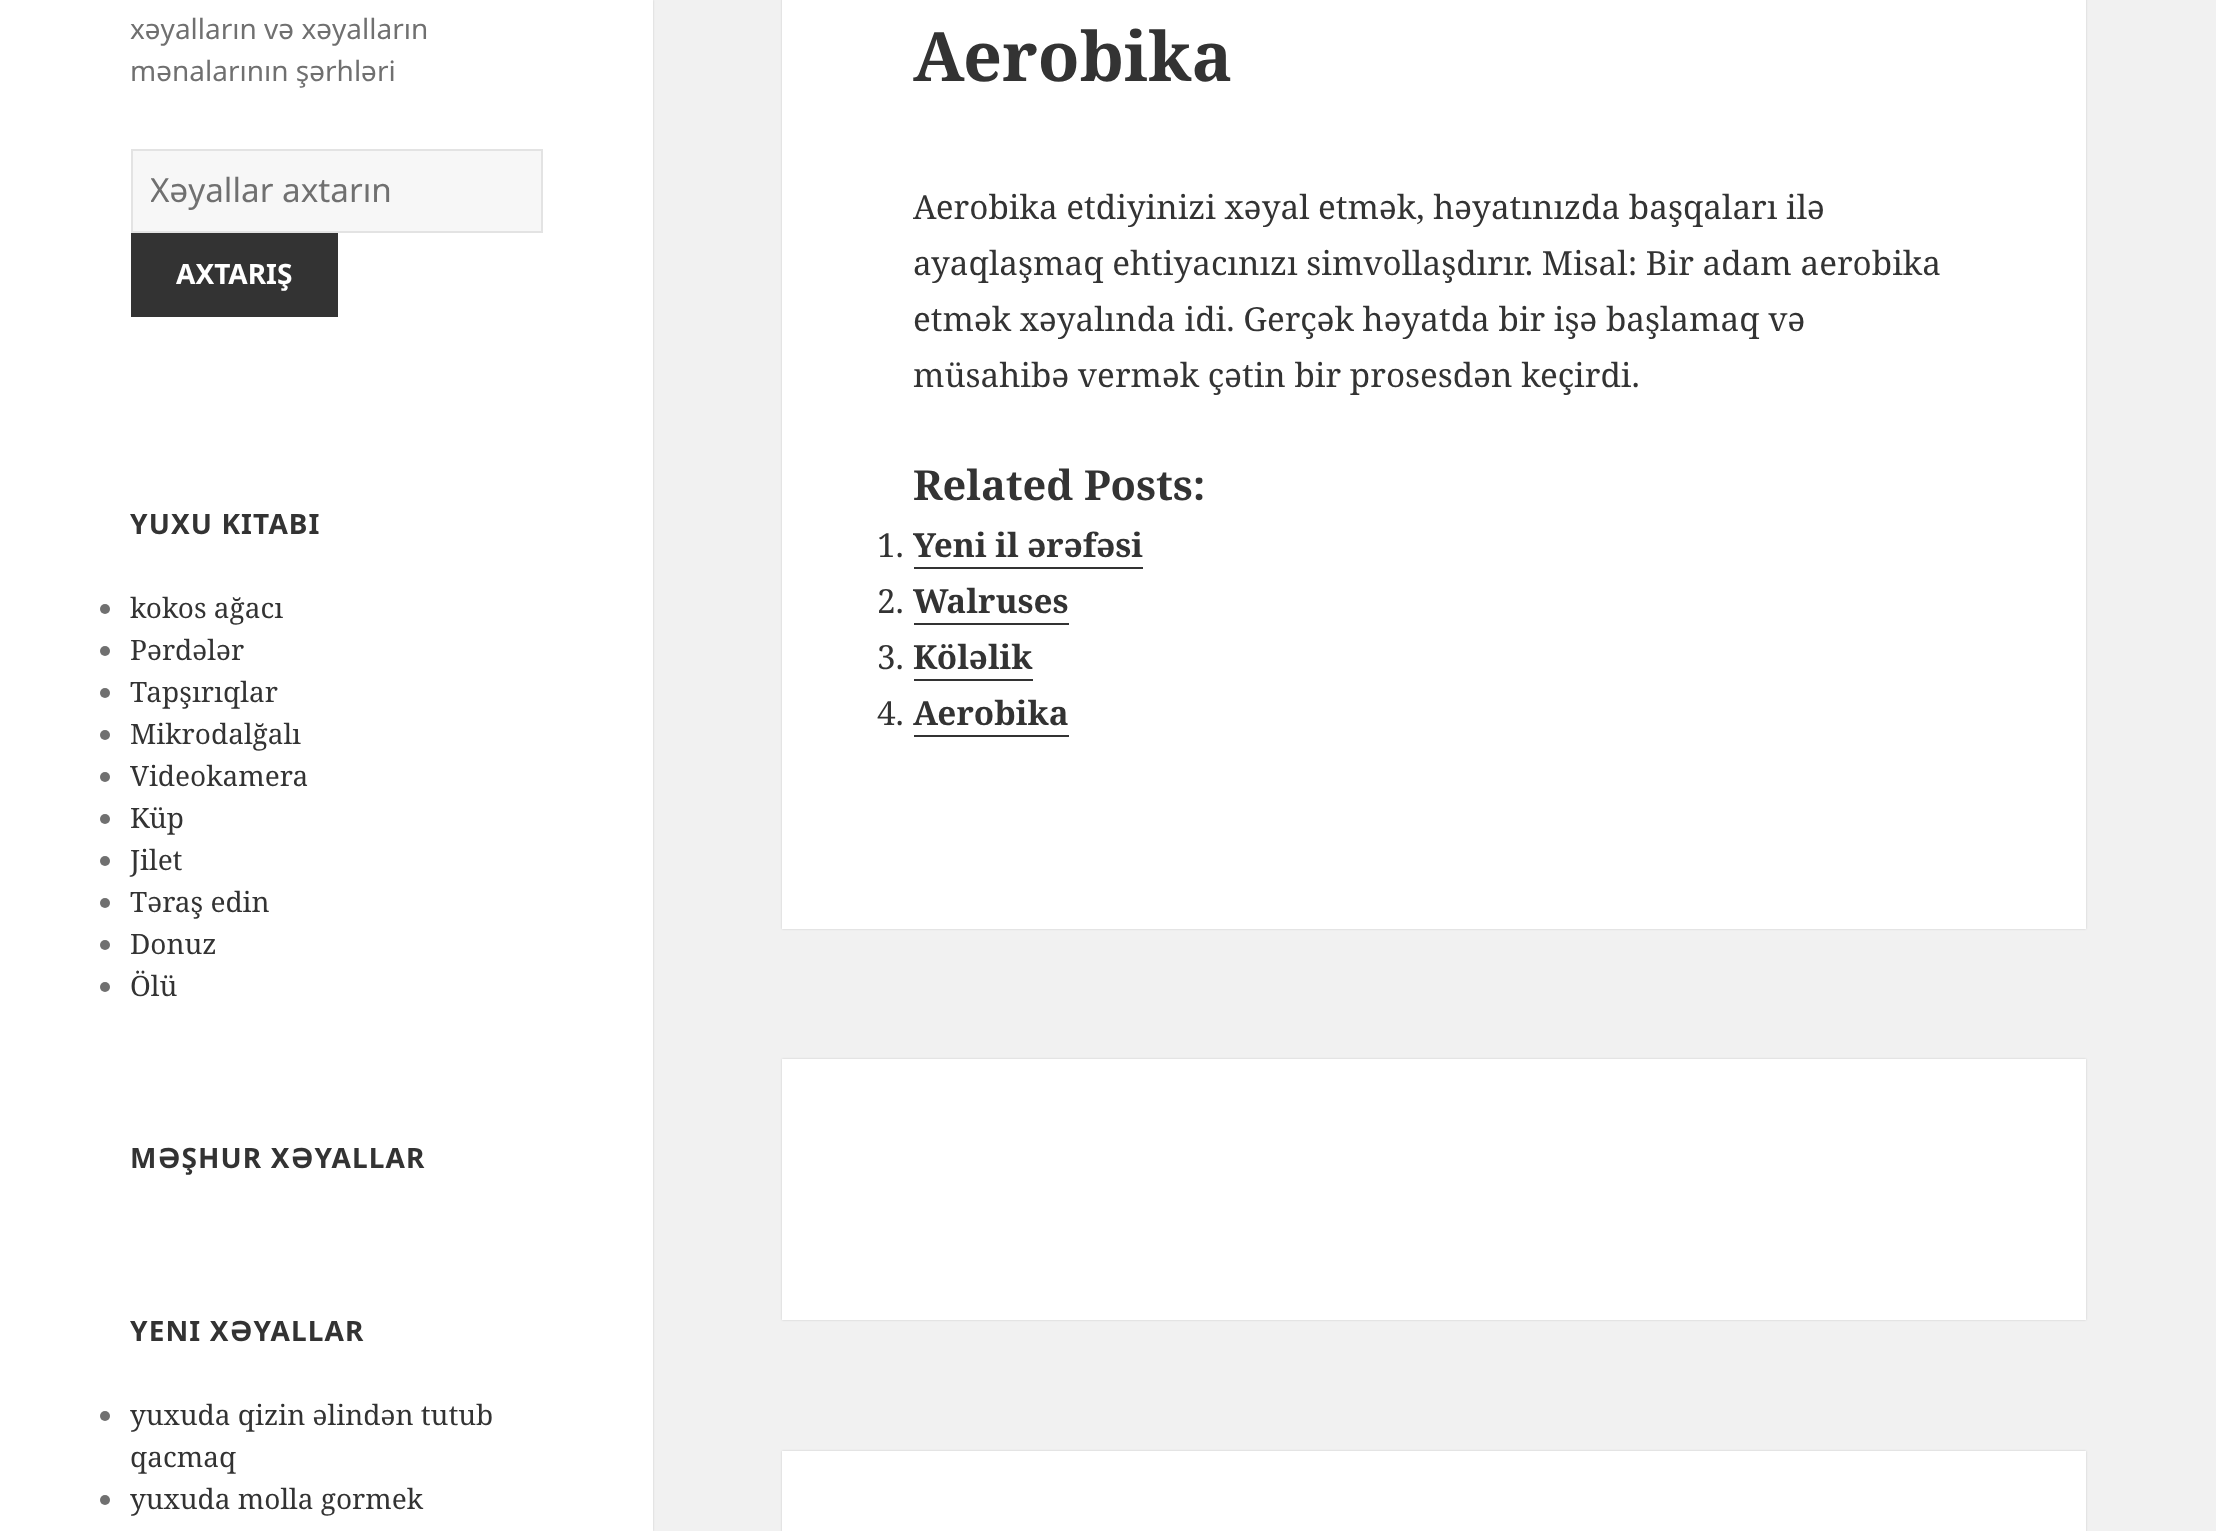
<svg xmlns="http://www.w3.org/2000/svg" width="2216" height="1531">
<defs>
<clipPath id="clip1"><rect x="151" y="168" width="365" height="46"/></clipPath>
</defs>
<rect width="100%" height="100%" fill="#f1f1f1"/>
<rect width="653" height="1531" fill="#00000026" filter="blur(1px)"/>
<rect width="653" height="1531" fill="#fff"/>
<text x="130" y="39" style="font-family:Noto Sans;font-size:28px;fill:#707070">xəyalların və xəyalların</text>
<text x="130" y="81" style="font-family:Noto Sans;font-size:28px;fill:#707070">mənalarının şərhləri</text>
<rect x="132" y="150" width="410" height="82" fill="#f7f7f7" stroke="#e3e3e3" stroke-width="2"/>
<g clip-path="url(#clip1)">
<text x="150" y="202" style="font-family:Noto Sans;font-size:33.25px;fill:#707070">Xəyallar axtarın</text>
</g>
<rect x="131" y="233" width="207" height="84" fill="#333"/>
<text x="176" y="284" style="font-family:Noto Sans;font-size:28px;font-weight:bold;fill:#fff">AXTARIŞ</text>
<text x="130" y="534" style="font-family:Noto Sans;font-size:28px;font-weight:bold;letter-spacing:1.1px;fill:#333">YUXU KITABI</text>
<circle cx="105" cy="609" r="5" fill="#707070"/>
<text x="130" y="618" style="font-family:Noto Serif;font-size:28px;fill:#333">kokos ağacı</text>
<circle cx="105" cy="651" r="5" fill="#707070"/>
<text x="130" y="660" style="font-family:Noto Serif;font-size:28px;fill:#333">Pərdələr</text>
<circle cx="105" cy="693" r="5" fill="#707070"/>
<text x="130" y="702" style="font-family:Noto Serif;font-size:28px;fill:#333">Tapşırıqlar</text>
<circle cx="105" cy="735" r="5" fill="#707070"/>
<text x="130" y="744" style="font-family:Noto Serif;font-size:28px;fill:#333">Mikrodalğalı</text>
<circle cx="105" cy="777" r="5" fill="#707070"/>
<text x="130" y="786" style="font-family:Noto Serif;font-size:28px;fill:#333">Videokamera</text>
<circle cx="105" cy="819" r="5" fill="#707070"/>
<text x="130" y="828" style="font-family:Noto Serif;font-size:28px;fill:#333">Küp</text>
<circle cx="105" cy="861" r="5" fill="#707070"/>
<text x="130" y="870" style="font-family:Noto Serif;font-size:28px;fill:#333">Jilet</text>
<circle cx="105" cy="903" r="5" fill="#707070"/>
<text x="130" y="912" style="font-family:Noto Serif;font-size:28px;fill:#333">Təraş edin</text>
<circle cx="105" cy="945" r="5" fill="#707070"/>
<text x="130" y="954" style="font-family:Noto Serif;font-size:28px;fill:#333">Donuz</text>
<circle cx="105" cy="987" r="5" fill="#707070"/>
<text x="130" y="996" style="font-family:Noto Serif;font-size:28px;fill:#333">Ölü</text>
<text x="130" y="1168" style="font-family:Noto Sans;font-size:28px;font-weight:bold;letter-spacing:1.1px;fill:#333">MƏŞHUR XƏYALLAR</text>
<text x="130" y="1341" style="font-family:Noto Sans;font-size:28px;font-weight:bold;letter-spacing:1.1px;fill:#333">YENI XƏYALLAR</text>
<circle cx="105" cy="1416" r="5" fill="#707070"/>
<text x="130" y="1425" style="font-family:Noto Serif;font-size:28px;fill:#333">yuxuda qizin əlindən tutub</text>
<text x="130" y="1467" style="font-family:Noto Serif;font-size:28px;fill:#333">qacmaq</text>
<circle cx="105" cy="1500" r="5" fill="#707070"/>
<text x="130" y="1509" style="font-family:Noto Serif;font-size:28px;fill:#333">yuxuda molla gormek</text>
<rect x="782" y="-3" width="1304" height="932" fill="#00000026" filter="blur(1px)"/>
<rect x="782" width="1304" height="929" fill="#fff"/>
<text x="913" y="81" style="font-family:Noto Serif;font-size:68.25px;font-weight:bold;fill:#333">Aerobika</text>
<text x="913" y="219" style="font-family:Noto Serif;font-size:33.25px;fill:#333">Aerobika etdiyinizi xəyal etmək, həyatınızda başqaları ilə</text>
<text x="913" y="275" style="font-family:Noto Serif;font-size:33.25px;fill:#333">ayaqlaşmaq ehtiyacınızı simvollaşdırır. Misal: Bir adam aerobika</text>
<text x="913" y="331" style="font-family:Noto Serif;font-size:33.25px;fill:#333">etmək xəyalında idi. Gerçək həyatda bir işə başlamaq və</text>
<text x="913" y="387" style="font-family:Noto Serif;font-size:33.25px;fill:#333">müsahibə vermək çətin bir prosesdən keçirdi.</text>
<text x="913" y="500" style="font-family:Noto Serif;font-size:41.5px;font-weight:bold;fill:#333">Related Posts:</text>
<text x="877" y="557" style="font-family:Noto Serif;font-size:33.25px;fill:#333">1.</text>
<text x="913" y="557" style="font-family:Noto Serif;font-size:33.25px;font-weight:bold;fill:#333">Yeni il ərəfəsi</text>
<rect x="914" y="567" width="229" height="2" fill="#333"/>
<text x="877" y="613" style="font-family:Noto Serif;font-size:33.25px;fill:#333">2.</text>
<text x="913" y="613" style="font-family:Noto Serif;font-size:33.25px;font-weight:bold;fill:#333">Walruses</text>
<rect x="914" y="623" width="155" height="2" fill="#333"/>
<text x="877" y="669" style="font-family:Noto Serif;font-size:33.25px;fill:#333">3.</text>
<text x="913" y="669" style="font-family:Noto Serif;font-size:33.25px;font-weight:bold;fill:#333">Köləlik</text>
<rect x="914" y="679" width="119" height="2" fill="#333"/>
<text x="877" y="725" style="font-family:Noto Serif;font-size:33.25px;fill:#333">4.</text>
<text x="913" y="725" style="font-family:Noto Serif;font-size:33.25px;font-weight:bold;fill:#333">Aerobika</text>
<rect x="914" y="735" width="155" height="2" fill="#333"/>
<rect x="782" y="1059" width="1304" height="261" fill="#00000026" filter="blur(1px)"/>
<rect x="782" y="1059" width="1304" height="261" fill="#fff"/>
<rect x="782" y="1451" width="1304" height="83" fill="#00000026" filter="blur(1px)"/>
<rect x="782" y="1451" width="1304" height="80" fill="#fff"/>
</svg>
